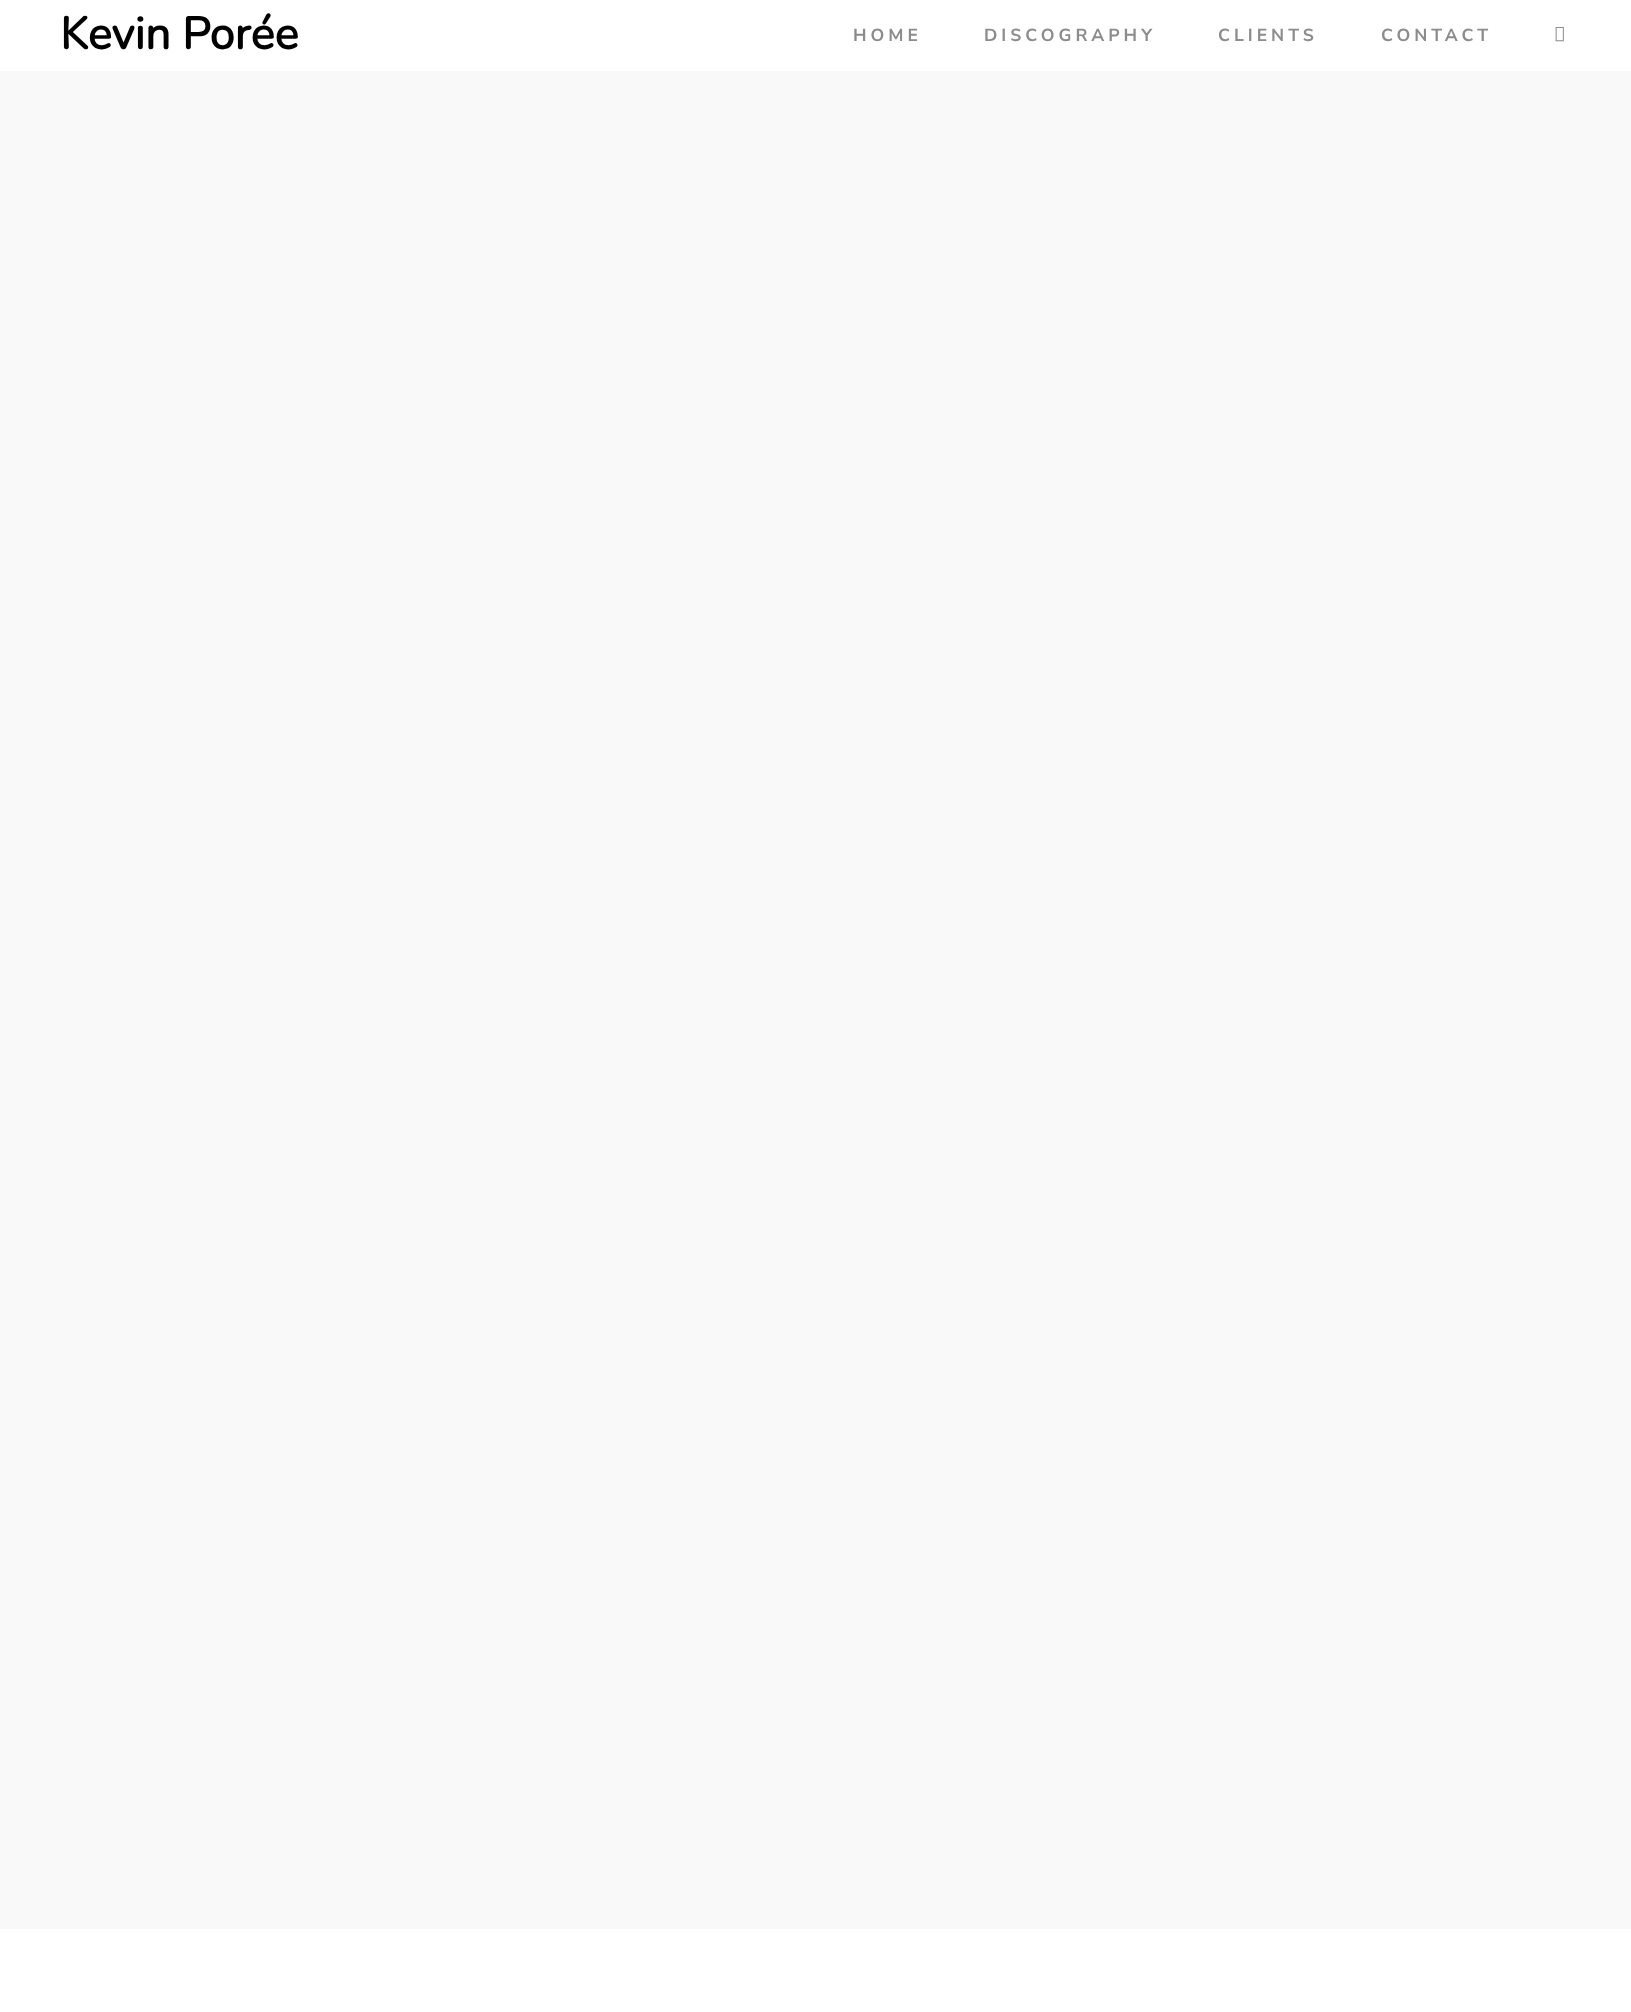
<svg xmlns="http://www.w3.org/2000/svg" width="1631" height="2012">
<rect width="100%" height="100%" fill="#f9f9f9"/>
<rect width="1631" height="71" fill="#fff"/>
<text x="60" y="49" style="font-family:Nunito;font-size:45px;font-weight:bold;fill:#000">Kevin Porée</text>
<text x="853" y="41" style="font-family:Nunito Sans;font-size:17.5px;font-weight:bold;letter-spacing:4px;fill:#8c8c8c">HOME</text>
<text x="984" y="41" style="font-family:Nunito Sans;font-size:17.5px;font-weight:bold;letter-spacing:4px;fill:#8c8c8c">DISCOGRAPHY</text>
<text x="1218" y="41" style="font-family:Nunito Sans;font-size:17.5px;font-weight:bold;letter-spacing:4px;fill:#8c8c8c">CLIENTS</text>
<text x="1381" y="41" style="font-family:Nunito Sans;font-size:17.5px;font-weight:bold;letter-spacing:4px;fill:#8c8c8c">CONTACT</text>
<image x="1555" y="27" width="9" height="15" href="media/1.png"/>
<rect y="1929" width="1631" height="83" fill="#fff"/>
</svg>
